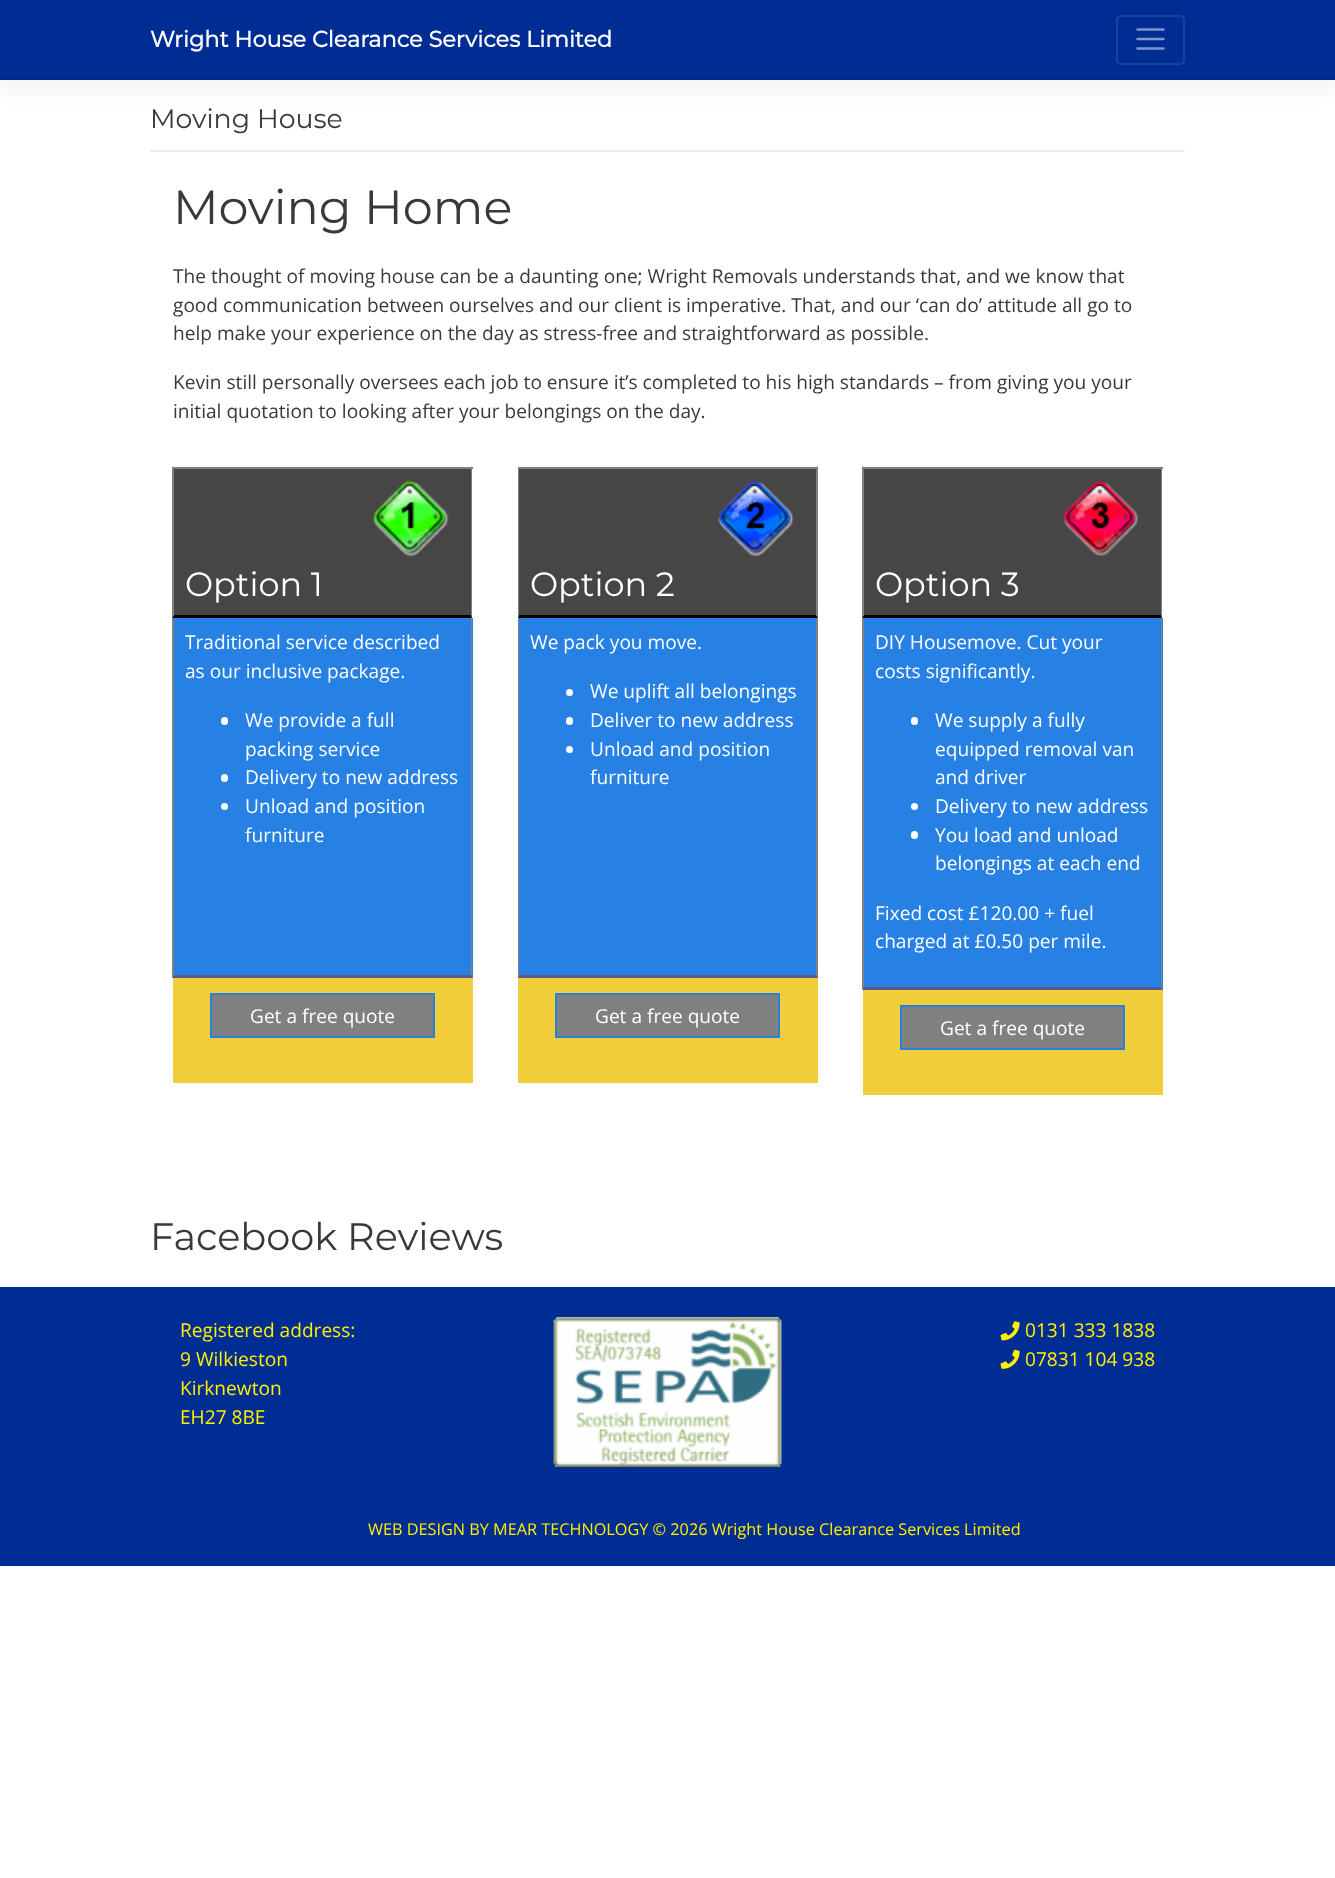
<svg xmlns="http://www.w3.org/2000/svg" width="1335" height="1878">
<rect width="100%" height="100%" fill="#fff"/>
<rect y="11" width="1335" height="79" fill="#0000000d" filter="blur(10px)"/>
<rect width="1335" height="78" fill="#002d94"/>
<rect y="78" width="1335" height="2" fill="#002985"/>
<text x="150" y="47" style="font-family:Montserrat;font-size:22.4px;font-weight:bold;fill:#fff">Wright House Clearance Services Limited</text>
<rect x="1117" y="16" width="67" height="48" rx="4" fill="none" stroke="#1a429f" stroke-width="2"/>
<path d="M1137.5 29.5h26m-26 9.5h26m-26 9.5h26" fill="none" stroke="#8096ca" stroke-width="2.4" stroke-linecap="round"/>
<rect x="150" y="150" width="1035" height="2" fill="#eaecef"/>
<text x="150" y="128" style="font-family:Montserrat;font-size:26.75px;font-weight:100;fill:#373a3c">Moving House</text>
<text x="173" y="224" style="font-family:Montserrat;font-size:47.75px;font-weight:100;fill:#373a3c">Moving Home</text>
<text x="173" y="283" style="font-family:Open Sans;font-size:19.12px;fill:#373a3c">The thought of moving house can be a daunting one; Wright Removals understands that, and we know that</text>
<text x="173" y="312" style="font-family:Open Sans;font-size:19.12px;fill:#373a3c">good communication between ourselves and our client is imperative. That, and our ‘can do’ attitude all go to</text>
<text x="173" y="340" style="font-family:Open Sans;font-size:19.12px;fill:#373a3c">help make your experience on the day as stress-free and straightforward as possible.</text>
<text x="173" y="389" style="font-family:Open Sans;font-size:19.12px;fill:#373a3c">Kevin still personally oversees each job to ensure it’s completed to his high standards – from giving you your</text>
<text x="173" y="418" style="font-family:Open Sans;font-size:19.12px;fill:#373a3c">initial quotation to looking after your belongings on the day.</text>
<rect x="174" y="469" width="297" height="146" fill="#464646"/>
<rect x="173" y="467" width="300" height="2" fill="#808080"/>
<path d="M472 466v152l-1-3v-147z" fill="#808080"/>
<path d="M472 618h-300l2-3h297z" fill="#010101"/>
<path d="M172 618v-152l2 2v147z" fill="#808080"/>
<image x="373" y="480" width="76" height="77" href="media/1.png"/>
<text x="185" y="596" style="font-family:Montserrat;font-size:33.5px;font-weight:100;fill:#fff">Option 1</text>
<rect x="173" y="618" width="300" height="360" fill="#2780e3"/>
<path d="M472 618v360l-1-3v-357z" fill="#808080"/>
<path d="M472 978h-300l2-3h297z" fill="#5a5b87"/>
<path d="M172 978v-360h2v357z" fill="#808080"/>
<text x="185" y="649" style="font-family:Open Sans;font-size:19.12px;fill:#fff">Traditional service described</text>
<text x="185" y="678" style="font-family:Open Sans;font-size:19.12px;fill:#fff">as our inclusive package.</text>
<rect x="221" y="717" width="7" height="8" rx="3.5" fill="#fff"/>
<text x="245" y="727" style="font-family:Open Sans;font-size:19.12px;fill:#fff">We provide a full</text>
<text x="245" y="756" style="font-family:Open Sans;font-size:19.12px;fill:#fff">packing service</text>
<rect x="221" y="774" width="7" height="8" rx="3.5" fill="#fff"/>
<text x="245" y="784" style="font-family:Open Sans;font-size:19.12px;fill:#fff">Delivery to new address</text>
<circle cx="224.5" cy="806.5" r="3.5" fill="#fff"/>
<text x="245" y="813" style="font-family:Open Sans;font-size:19.12px;fill:#fff">Unload and position</text>
<text x="245" y="842" style="font-family:Open Sans;font-size:19.12px;fill:#fff">furniture</text>
<rect x="173" y="978" width="300" height="105" fill="#f2ce3a"/>
<rect x="211" y="994" width="223" height="43" fill="#808080" stroke="#2780e3" stroke-width="2"/>
<text x="250" y="1023" style="font-family:Open Sans;font-size:19.12px;fill:#fff">Get a free quote</text>
<rect x="519" y="469" width="297" height="146" fill="#464646"/>
<rect x="518" y="467" width="300" height="2" fill="#808080"/>
<path d="M818 466v152l-2-3v-147z" fill="#808080"/>
<path d="M818 618h-300l1-3h297z" fill="#010101"/>
<path d="M518 618v-152l1 2v147z" fill="#808080"/>
<image x="718" y="480" width="76" height="77" href="media/2.png"/>
<text x="530" y="596" style="font-family:Montserrat;font-size:33.5px;font-weight:100;fill:#fff">Option 2</text>
<rect x="518" y="618" width="300" height="360" fill="#2780e3"/>
<path d="M818 618v360l-2-3v-357z" fill="#808080"/>
<path d="M818 978h-300l1-3h297z" fill="#5a5b87"/>
<path d="M518 978v-360h1v357z" fill="#808080"/>
<text x="530" y="649" style="font-family:Open Sans;font-size:19.12px;fill:#fff">We pack you move.</text>
<circle cx="569.5" cy="692.5" r="3.5" fill="#fff"/>
<text x="590" y="698" style="font-family:Open Sans;font-size:19.12px;fill:#fff">We uplift all belongings</text>
<rect x="566" y="717" width="7" height="8" rx="3.5" fill="#fff"/>
<text x="590" y="727" style="font-family:Open Sans;font-size:19.12px;fill:#fff">Deliver to new address</text>
<circle cx="569.5" cy="749.5" r="3.5" fill="#fff"/>
<text x="590" y="756" style="font-family:Open Sans;font-size:19.12px;fill:#fff">Unload and position</text>
<text x="590" y="784" style="font-family:Open Sans;font-size:19.12px;fill:#fff">furniture</text>
<rect x="518" y="978" width="300" height="105" fill="#f2ce3a"/>
<rect x="556" y="994" width="223" height="43" fill="#808080" stroke="#2780e3" stroke-width="2"/>
<text x="595" y="1023" style="font-family:Open Sans;font-size:19.12px;fill:#fff">Get a free quote</text>
<rect x="864" y="469" width="297" height="146" fill="#464646"/>
<rect x="863" y="467" width="300" height="2" fill="#808080"/>
<path d="M1162 466v152l-1-3v-147z" fill="#808080"/>
<path d="M1162 618h-300l2-3h297z" fill="#010101"/>
<path d="M862 618v-152l2 2v147z" fill="#808080"/>
<image x="1063" y="480" width="76" height="77" href="media/3.png"/>
<text x="875" y="596" style="font-family:Montserrat;font-size:33.5px;font-weight:100;fill:#fff">Option 3</text>
<rect x="863" y="618" width="300" height="372" fill="#2780e3"/>
<path d="M1162 618v372l-1-3v-369z" fill="#808080"/>
<path d="M1162 990h-300l2-3h297z" fill="#5a5b87"/>
<path d="M862 990v-372h2v369z" fill="#808080"/>
<text x="875" y="649" style="font-family:Open Sans;font-size:19.12px;fill:#fff">DIY Housemove. Cut your</text>
<text x="875" y="678" style="font-family:Open Sans;font-size:19.12px;fill:#fff">costs significantly.</text>
<rect x="911" y="717" width="7" height="8" rx="3.5" fill="#fff"/>
<text x="935" y="727" style="font-family:Open Sans;font-size:19.12px;fill:#fff">We supply a fully</text>
<text x="935" y="756" style="font-family:Open Sans;font-size:19.12px;fill:#fff">equipped removal van</text>
<text x="935" y="784" style="font-family:Open Sans;font-size:19.12px;fill:#fff">and driver</text>
<circle cx="914.5" cy="806.5" r="3.5" fill="#fff"/>
<text x="935" y="813" style="font-family:Open Sans;font-size:19.12px;fill:#fff">Delivery to new address</text>
<rect x="911" y="831" width="7" height="8" rx="3.5" fill="#fff"/>
<text x="935" y="842" style="font-family:Open Sans;font-size:19.12px;fill:#fff">You load and unload</text>
<text x="935" y="870" style="font-family:Open Sans;font-size:19.12px;fill:#fff">belongings at each end</text>
<text x="875" y="920" style="font-family:Open Sans;font-size:19.12px;fill:#fff">Fixed cost £120.00 + fuel</text>
<text x="875" y="948" style="font-family:Open Sans;font-size:19.12px;fill:#fff">charged at £0.50 per mile.</text>
<rect x="863" y="990" width="300" height="105" fill="#f2ce3a"/>
<rect x="901" y="1006" width="223" height="43" fill="#808080" stroke="#2780e3" stroke-width="2"/>
<text x="940" y="1035" style="font-family:Open Sans;font-size:19.12px;fill:#fff">Get a free quote</text>
<text x="150" y="1250" style="font-family:Montserrat;font-size:38.25px;font-weight:100;fill:#373a3c">Facebook Reviews</text>
<rect y="1287" width="1335" height="279" fill="#002d94"/>
<text x="180" y="1337" style="font-family:Open Sans;font-size:19.12px;fill:#fff000">Registered address:</text>
<text x="180" y="1366" style="font-family:Open Sans;font-size:19.12px;fill:#fff000">9 Wilkieston</text>
<text x="180" y="1395" style="font-family:Open Sans;font-size:19.12px;fill:#fff000">Kirknewton</text>
<text x="180" y="1424" style="font-family:Open Sans;font-size:19.12px;fill:#fff000">EH27 8BE</text>
<image x="553" y="1317" width="229" height="150" href="media/4.png"/>
<image x="1000" y="1321" width="20" height="20" href="media/5.png"/>
<text x="1025" y="1337" style="font-family:Open Sans;font-size:19.12px;fill:#fff000">0131 333 1838</text>
<image x="1000" y="1349" width="20" height="20" href="media/6.png"/>
<text x="1025" y="1366" style="font-family:Open Sans;font-size:19.12px;fill:#fff000">07831 104 938</text>
<text x="368" y="1535" style="font-family:Open Sans;font-size:16.25px;fill:#fff000">WEB DESIGN BY MEAR TECHNOLOGY © 2026 Wright House Clearance Services Limited</text>
</svg>
